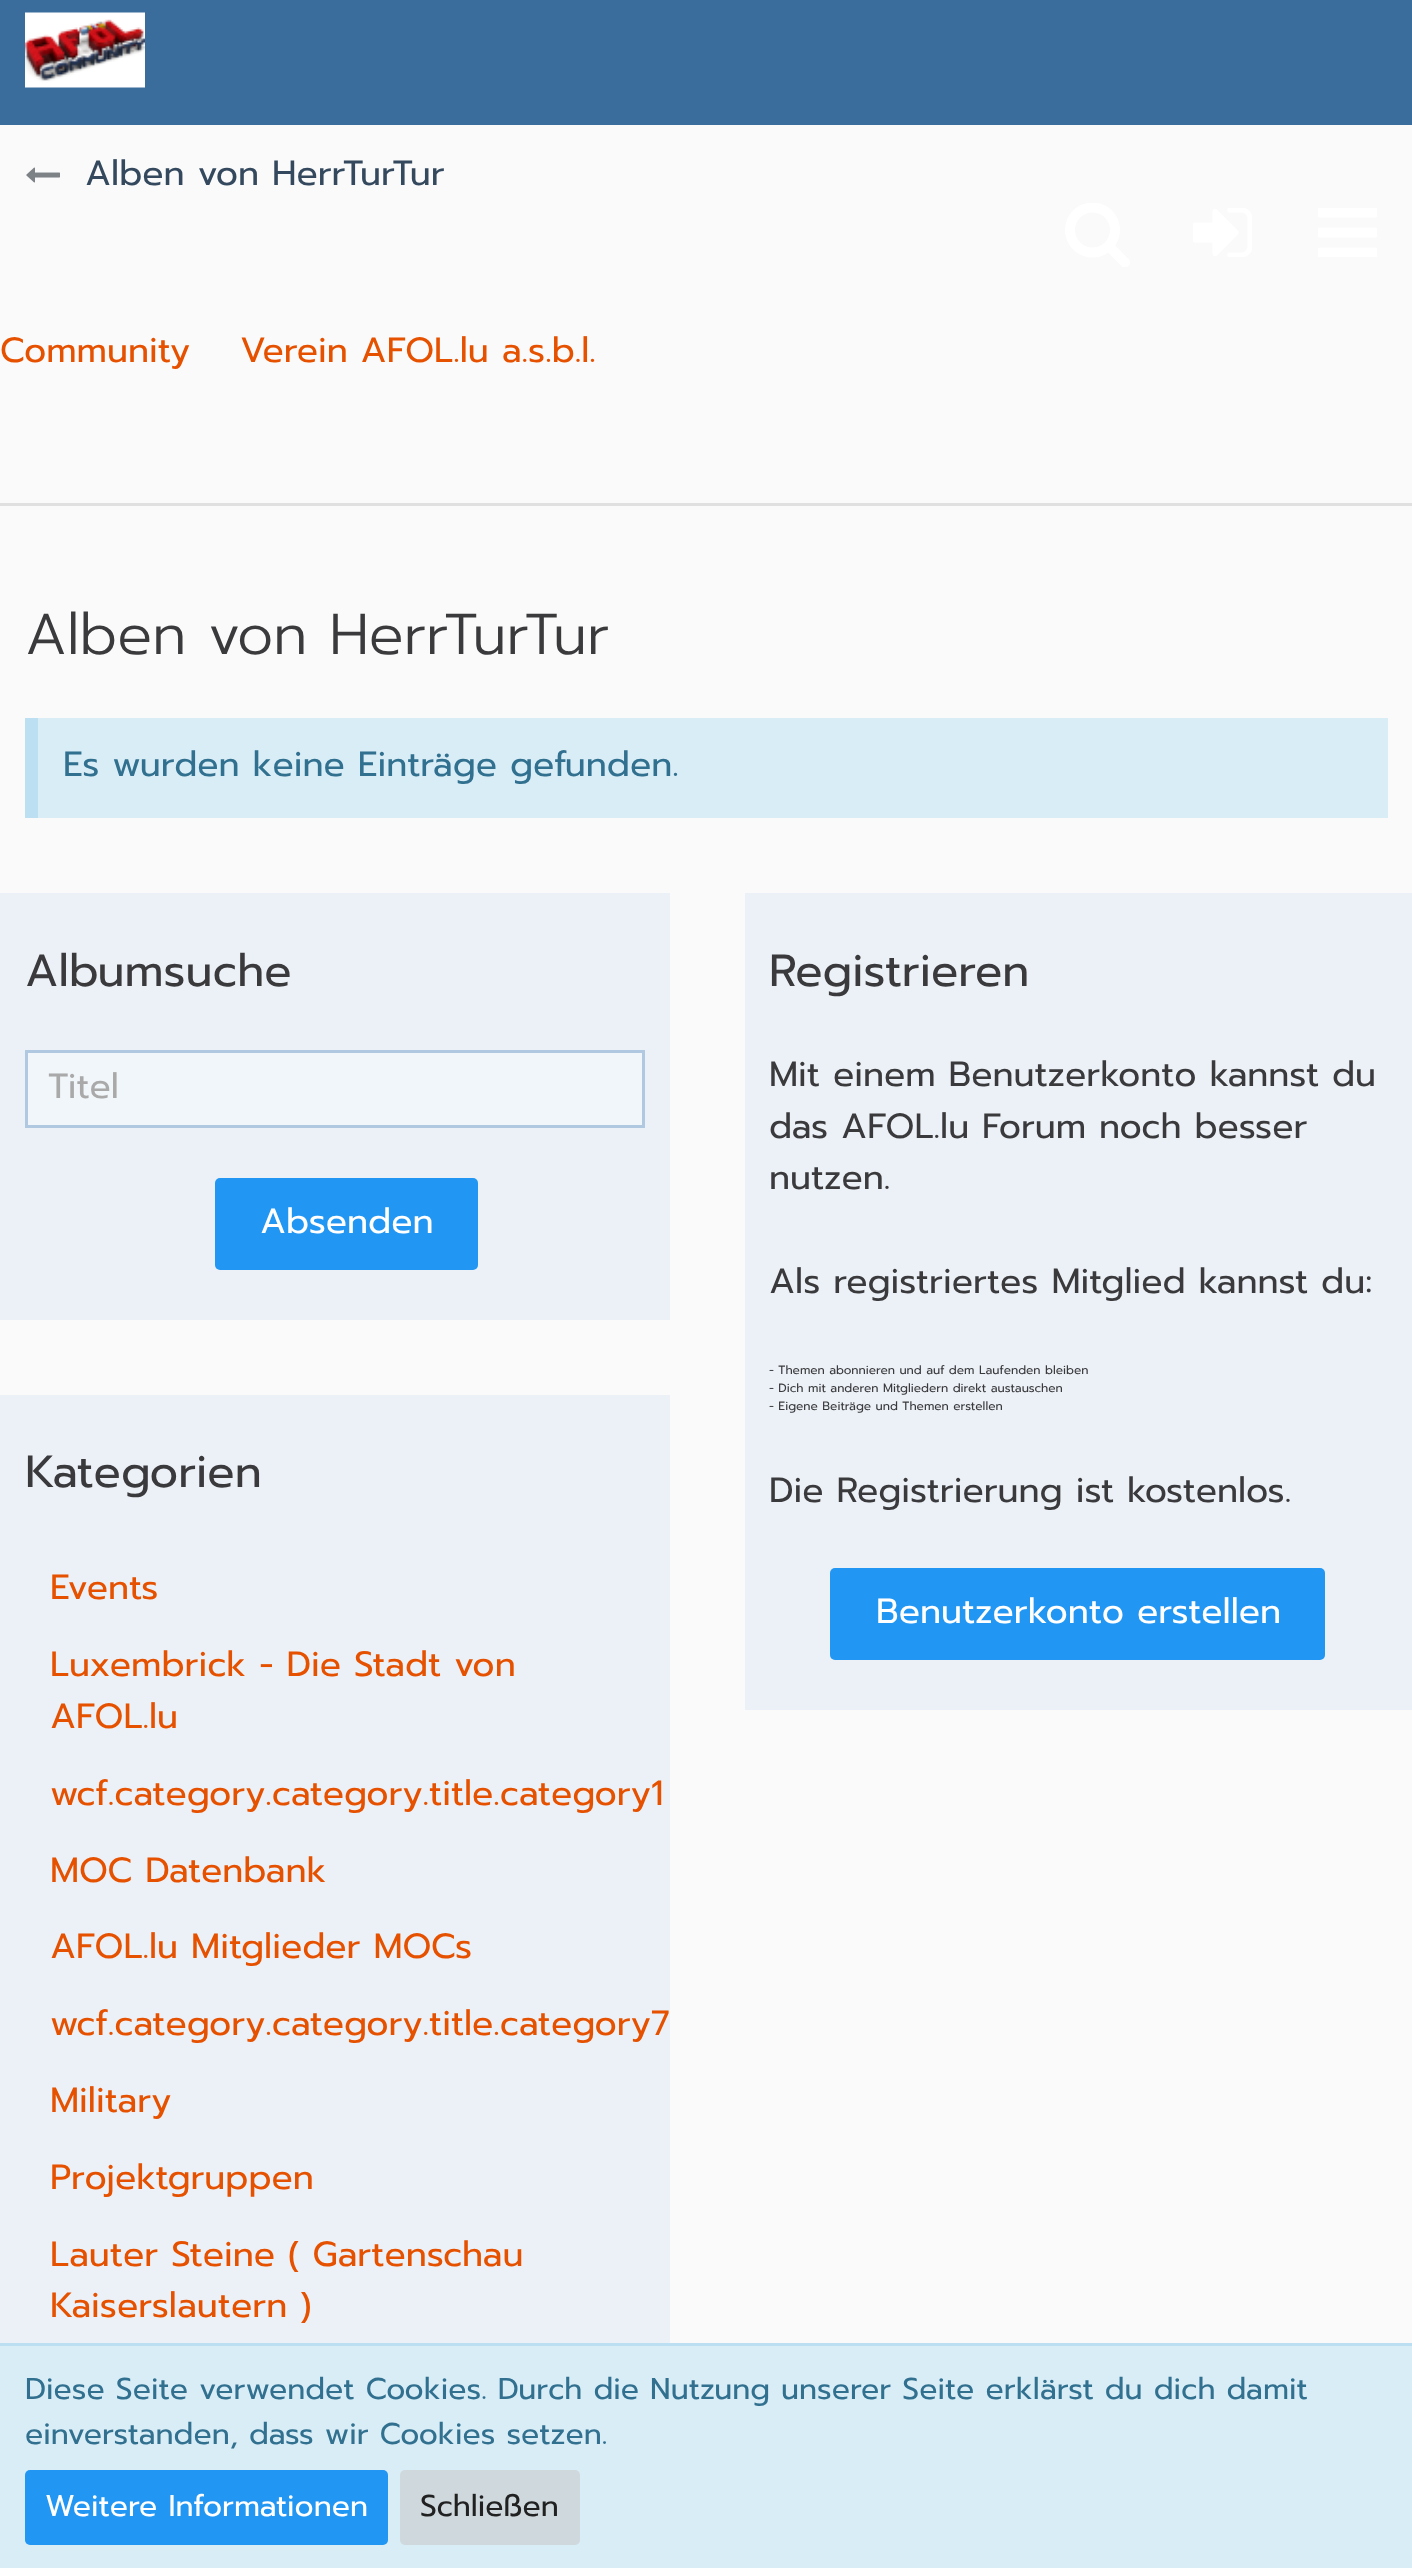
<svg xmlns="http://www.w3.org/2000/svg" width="1412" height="2568">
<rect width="100%" height="100%" fill="#fafafa"/>
<rect width="1412" height="125" fill="#3a6d9c"/>
<image x="25" y="12" width="120" height="76" href="media/1.png"/>
<image x="1065" y="203" width="65" height="64" href="media/2.png"/>
<image x="1193" y="208" width="59" height="49" href="media/3.png"/>
<image x="1318" y="208" width="59" height="49" href="media/4.png"/>
<image x="26" y="167" width="34" height="16" href="media/5.png"/>
<text x="85" y="185" style="font-family:Prompt;font-size:35px;fill:#34495e">Alben von HerrTurTur</text>
<rect y="503" width="1412" height="3" fill="#e0e0e0"/>
<text x="0" y="362" style="font-family:Prompt;font-size:35px;fill:#e65100">Community</text>
<text x="240" y="362" style="font-family:Prompt;font-size:35px;fill:#e65100">Verein AFOL.lu a.s.b.l.</text>
<text x="25" y="654" style="font-family:Prompt;font-size:57.5px;font-weight:300;fill:#3a3a3d">Alben von HerrTurTur</text>
<rect x="38" y="718" width="1350" height="100" fill="#d9edf7"/>
<rect x="25" y="718" width="13" height="100" fill="#bcdff1"/>
<text x="63" y="776" style="font-family:Prompt;font-size:35px;fill:#31708f">Es wurden keine Einträge gefunden.</text>
<rect y="893" width="670" height="427" fill="#ecf1f7"/>
<text x="25" y="986" style="font-family:Prompt;font-size:45px;fill:#3a3a3d">Albumsuche</text>
<rect x="26.5" y="1051.5" width="617" height="75" fill="#f1f6fb" stroke="#b0c8e0" stroke-width="3"/>
<text x="48" y="1098" style="font-family:Prompt;font-size:35px;fill:#a9a9a9">Titel</text>
<rect x="215" y="1178" width="263" height="92" rx="5" fill="#2196f3"/>
<text x="260" y="1233" style="font-family:Prompt;font-size:35px;fill:#fff">Absenden</text>
<rect x="745" y="893" width="667" height="817" fill="#ecf1f7"/>
<text x="769" y="986" style="font-family:Prompt;font-size:45px;fill:#3a3a3d">Registrieren</text>
<text x="769" y="1086" style="font-family:Prompt;font-size:35px;fill:#3a3a3d">Mit einem Benutzerkonto kannst du</text>
<text x="769" y="1138" style="font-family:Prompt;font-size:35px;fill:#3a3a3d">das AFOL.lu Forum noch besser</text>
<text x="769" y="1189" style="font-family:Prompt;font-size:35px;fill:#3a3a3d">nutzen.</text>
<text x="769" y="1293" style="font-family:Prompt;font-size:35px;fill:#3a3a3d">Als registriertes Mitglied kannst du:</text>
<text x="769" y="1374" style="font-family:Prompt;font-size:12px;fill:#3a3a3d">- Themen abonnieren und auf dem Laufenden bleiben</text>
<text x="769" y="1392" style="font-family:Prompt;font-size:12px;fill:#3a3a3d">- Dich mit anderen Mitgliedern direkt austauschen</text>
<text x="769" y="1410" style="font-family:Prompt;font-size:12px;fill:#3a3a3d">- Eigene Beiträge und Themen erstellen</text>
<text x="769" y="1502" style="font-family:Prompt;font-size:35px;fill:#3a3a3d">Die Registrierung ist kostenlos.</text>
<rect x="830" y="1568" width="495" height="92" rx="5" fill="#2196f3"/>
<text x="876" y="1623" style="font-family:Prompt;font-size:35px;fill:#fff">Benutzerkonto erstellen</text>
<rect y="1395" width="670" height="948" fill="#ecf1f7"/>
<text x="25" y="1487" style="font-family:Prompt;font-size:45px;fill:#3a3a3d">Kategorien</text>
<text x="50" y="1599" style="font-family:Prompt;font-size:35px;fill:#e65100">Events</text>
<text x="50" y="1676" style="font-family:Prompt;font-size:35px;fill:#e65100">Luxembrick - Die Stadt von</text>
<text x="50" y="1728" style="font-family:Prompt;font-size:35px;fill:#e65100">AFOL.lu</text>
<text x="50" y="1805" style="font-family:Prompt;font-size:35px;fill:#e65100">wcf.category.category.title.category1</text>
<text x="50" y="1882" style="font-family:Prompt;font-size:35px;fill:#e65100">MOC Datenbank</text>
<text x="50" y="1958" style="font-family:Prompt;font-size:35px;fill:#e65100">AFOL.lu Mitglieder MOCs</text>
<text x="50" y="2035" style="font-family:Prompt;font-size:35px;fill:#e65100">wcf.category.category.title.category7</text>
<text x="50" y="2112" style="font-family:Prompt;font-size:35px;fill:#e65100">Military</text>
<text x="50" y="2189" style="font-family:Prompt;font-size:35px;fill:#e65100">Projektgruppen</text>
<text x="50" y="2266" style="font-family:Prompt;font-size:35px;fill:#e65100">Lauter Steine ( Gartenschau</text>
<text x="50" y="2317" style="font-family:Prompt;font-size:35px;fill:#e65100">Kaiserslautern )</text>
<rect y="2346" width="1412" height="222" fill="#d9edf7"/>
<rect y="2343" width="1412" height="3" fill="#bcdff1"/>
<text x="25" y="2399" style="font-family:Prompt;font-size:30px;fill:#31708f">Diese Seite verwendet Cookies. Durch die Nutzung unserer Seite erklärst du dich damit</text>
<text x="25" y="2444" style="font-family:Prompt;font-size:30px;fill:#31708f">einverstanden, dass wir Cookies setzen.</text>
<rect x="25" y="2470" width="363" height="75" rx="5" fill="#2196f3"/>
<text x="45" y="2516" style="font-family:Prompt;font-size:30px;fill:#fff">Weitere Informationen</text>
<rect x="400" y="2470" width="180" height="75" rx="5" fill="#cfd8dc"/>
<text x="420" y="2516" style="font-family:Prompt;font-size:30px;fill:#212121">Schließen</text>
</svg>
